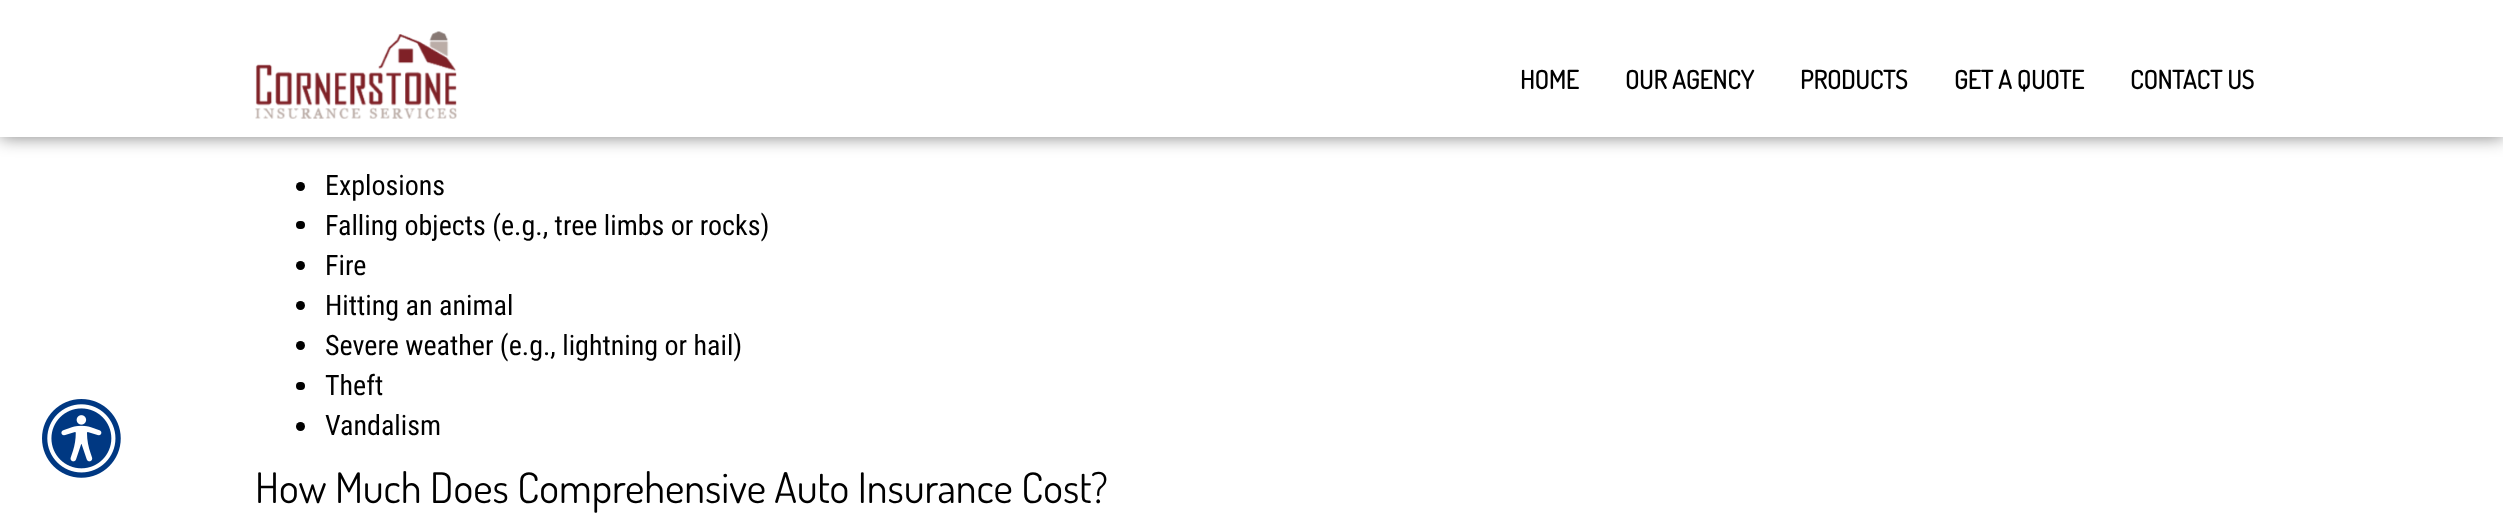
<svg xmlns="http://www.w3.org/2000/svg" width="2503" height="528">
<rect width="100%" height="100%" fill="#fff"/>
<image x="42" y="399" width="79" height="79" href="media/1.png"/>
<rect width="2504" height="137" fill="#00000080" filter="blur(9px)"/>
<rect width="2503" height="137" fill="#fff"/>
<image x="255" y="31" width="202" height="88" href="media/2.png"/>
<text x="1520" y="89" style="font-family:Dosis;font-size:25.5px;font-weight:bold;fill:#000">HOME</text>
<text x="1625" y="89" style="font-family:Dosis;font-size:25.5px;font-weight:bold;fill:#000">OUR AGENCY</text>
<text x="1800" y="89" style="font-family:Dosis;font-size:25.5px;font-weight:bold;fill:#000">PRODUCTS</text>
<text x="1954" y="89" style="font-family:Dosis;font-size:25.5px;font-weight:bold;fill:#000">GET A QUOTE</text>
<text x="2130" y="89" style="font-family:Dosis;font-size:25.5px;font-weight:bold;fill:#000">CONTACT US</text>
<circle cx="300.5" cy="186.5" r="4.5" fill="#000"/>
<text x="325" y="195" style="font-family:Roboto Condensed;font-size:28px;fill:#000">Explosions</text>
<rect x="296" y="221" width="9" height="8" rx="4" fill="#000"/>
<text x="325" y="235" style="font-family:Roboto Condensed;font-size:28px;fill:#000">Falling objects (e.g., tree limbs or rocks)</text>
<circle cx="300.5" cy="265.5" r="4.5" fill="#000"/>
<text x="325" y="275" style="font-family:Roboto Condensed;font-size:28px;fill:#000">Fire</text>
<circle cx="300.5" cy="305.5" r="4.5" fill="#000"/>
<text x="325" y="315" style="font-family:Roboto Condensed;font-size:28px;fill:#000">Hitting an animal</text>
<circle cx="300.5" cy="345.5" r="4.5" fill="#000"/>
<text x="325" y="355" style="font-family:Roboto Condensed;font-size:28px;fill:#000">Severe weather (e.g., lightning or hail)</text>
<rect x="296" y="382" width="9" height="8" rx="4" fill="#000"/>
<text x="325" y="395" style="font-family:Roboto Condensed;font-size:28px;fill:#000">Theft</text>
<circle cx="300.5" cy="426.5" r="4.5" fill="#000"/>
<text x="325" y="435" style="font-family:Roboto Condensed;font-size:28px;fill:#000">Vandalism</text>
<text x="255" y="503" style="font-family:Dosis;font-size:42px;fill:#000">How Much Does Comprehensive Auto Insurance Cost?</text>
</svg>
